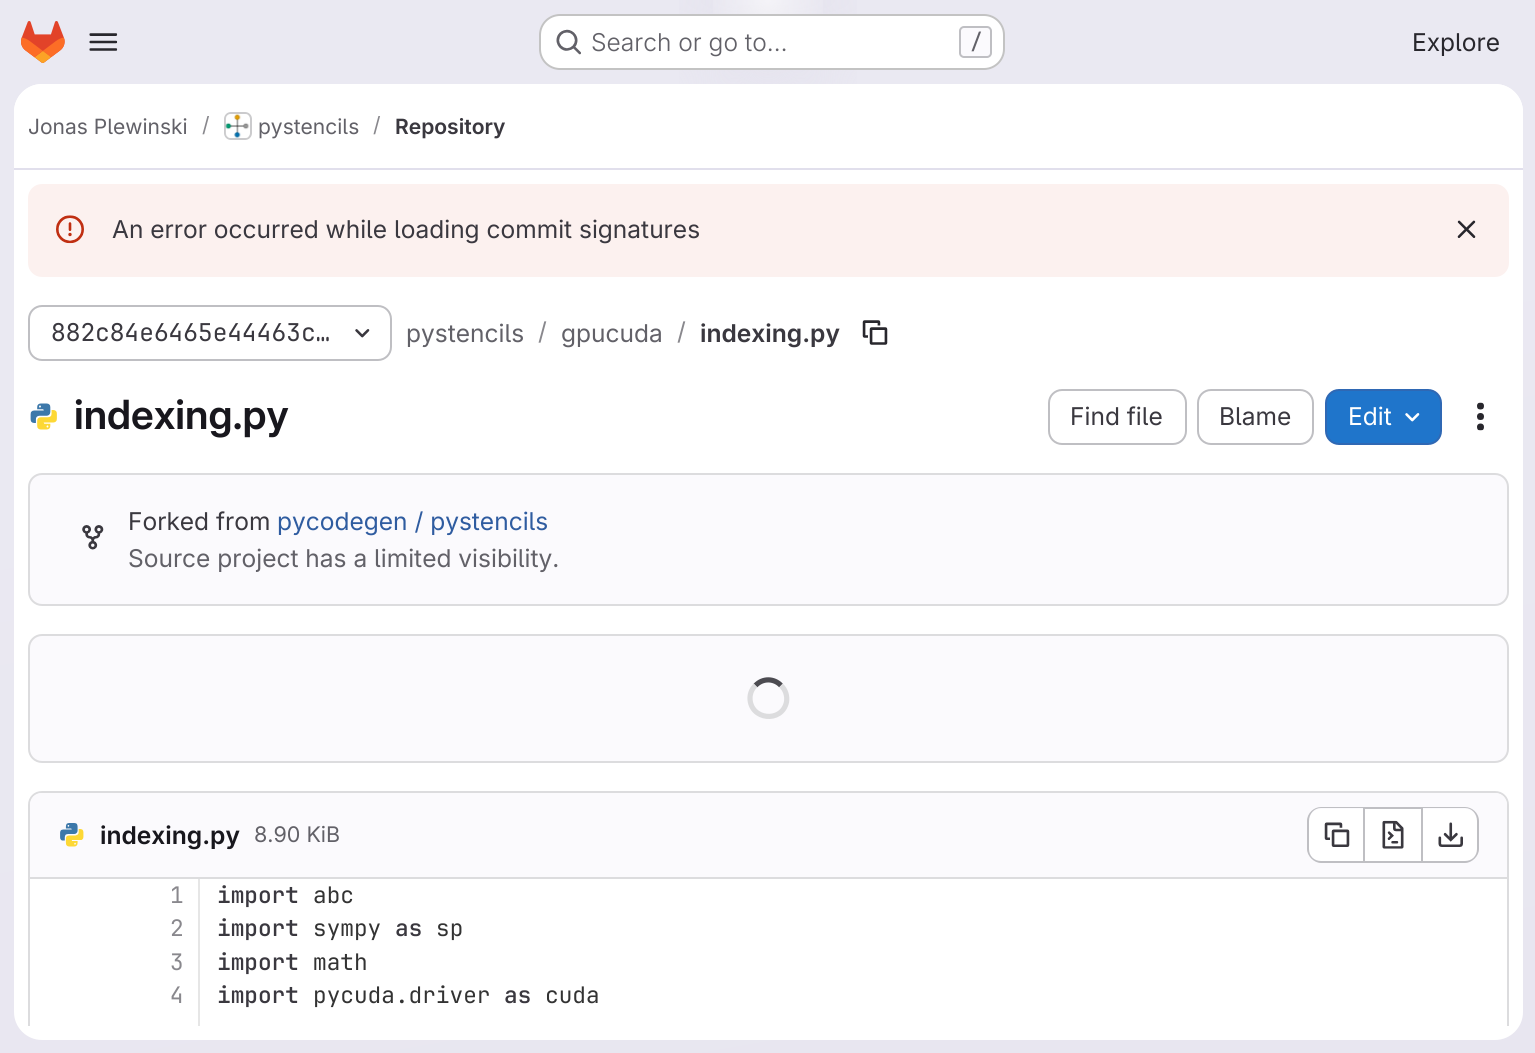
import math
import cairo

surface = cairo.ImageSurface(cairo.FORMAT_RGB24, 1535, 1053)
c = cairo.Context(surface)
options = cairo.FontOptions()
options.set_hint_metrics(cairo.HINT_METRICS_OFF)
options.set_hint_style(cairo.HINT_STYLE_NONE)
c.set_font_options(options)
c.set_miter_limit(4)
def C(code):
 c.set_source_rgb(*(v / 255 for v in bytes.fromhex(code[-6:])))
def F(family, size, italic, bold):
 c.select_font_face(family, cairo.FONT_SLANT_ITALIC if italic else cairo.FONT_SLANT_NORMAL, cairo.FONT_WEIGHT_BOLD if bold else cairo.FONT_WEIGHT_NORMAL)
 c.set_font_size(size)
def T(x, y, s):
 c.move_to(x, y)
 c.show_text(s)
def R(x, y, w, h):
 c.rectangle(x, y, w, h)
 c.fill()
def Q(x, y, w, h, r):
 c.new_sub_path()
 for i, (u, v) in enumerate([(x + w - r, y + h - r), (x + r, y + h - r), (x + r, y + r), (x + w - r, y + r)]):
  c.arc(u, v, r, i * math.pi / 2, (i + 1) * math.pi / 2)
 c.close_path()
def I(path, x, y, w, h):
 c.save()
 c.set_source_surface(cairo.ImageSurface.create_from_png(path), x, y)
 c.rectangle(x, y, w, h)
 c.fill()
 c.restore()
C('ffffff')
c.paint()
gradient = cairo.LinearGradient(881,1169,655,-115)
gradient.add_color_stop_rgba(0,0.91,0.902,0.941,1)
gradient.add_color_stop_rgba(.7,0.918,0.914,0.949,1)
c.set_source(gradient)
R(0,0,1535,1053)
gradient = cairo.RadialGradient(0,0,0,0,0,1)
gradient.set_matrix(cairo.Matrix(1 / 768, 0, 0, 1 / 1054, -1 * 768 / 768, -1 * 0 / 1054))
gradient.add_color_stop_rgba(0,0.894,0.886,0.929,1)
gradient.add_color_stop_rgba(.16,0.894,0.886,0.929,0)
c.set_source(gradient)
R(679,0,178,84)
gradient = cairo.RadialGradient(0,0,0,0,0,1)
gradient.set_matrix(cairo.Matrix(1 / 768, 0, 0, 1 / 1054, -1 * 768 / 768, -1 * 0 / 1054))
gradient.add_color_stop_rgba(0,0.894,0.886,0.925,1)
gradient.add_color_stop_rgba(.11,0.894,0.886,0.925,0)
c.set_source(gradient)
R(737,5,52,35)
gradient = cairo.RadialGradient(768,0,0,768,0,1304)
gradient.add_color_stop_rgba(0,1,1,1,.6)
gradient.add_color_stop_rgba(.05,1,1,1,0)
c.set_source(gradient)
R(713,0,110,14)
I('1.png',21,21,44,42)
I('2.png',89,33,29,18)
C('ffffff')
Q(539,14,466,56,21)
c.fill()
Q(540,15,464,54,20)
c.set_source_rgba(0.02,0.02,0.024,0.24)
c.stroke()
I('3.png',556,29,25,26)
F('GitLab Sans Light',24.5,0,0)
C('626168')
T(591,51,'Search or go to…')
C('fbfafd')
Q(960,27,31,30,4)
c.fill_preserve()
C('bfbfc3')
c.stroke()
F('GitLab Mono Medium',21,0,0)
C('626168')
T(970,49,'/')
F('GitLab Sans',24.5,0,0)
C('28272d')
T(1412,51,'Explore')
C('ffffff')
Q(14,84,1509,956,28)
c.fill()
c.new_path()
c.move_to(42,84)
c.line_to(1495,84)
c.curve_to(1510.5,84,1523,96.5,1523,112)
c.line_to(1523,170)
c.line_to(14,170)
c.line_to(14,112)
c.curve_to(14,96.5,26.5,84,42,84)
c.close_path()
c.fill()
C('e1dfec')
R(14,168,1509,2)
F('GitLab Sans',21,0,0)
C('626168')
T(28,134,'Jonas Plewinski')
C('89888d')
T(202,132,'/')
Q(225,113,26,26,6)
C('dcdcde')
c.stroke()
I('4.png',225,114,25,24)
Q(225,113,26,26,6)
c.set_source_rgba(0.02,0.02,0.024,0.08)
c.stroke()
C('626168')
T(258,134,'pystencils')
C('89888d')
T(373,132,'/')
F('GitLab Sans SemiBold',21,0,0)
C('3a383f')
T(395,134,'Repository')
C('fcf1ef')
Q(28,184,1481,93,14)
c.fill()
I('5.png',56,215,28,29)
F('GitLab Sans',24.5,0,0)
C('3a383f')
T(112,238,'An error occurred while loading commit signatures')
I('6.png',1457,220,19,18)
Q(29,306,362,54,13)
C('bfbfc3')
c.stroke()
F('GitLab Mono',24.5,0,0)
C('3a383f')
T(51,341,'882c84e6465e44463c…')
I('7.png',355,329,15,9)
F('GitLab Sans',24.5,0,0)
C('626168')
T(406,342,'pystencils')
C('89888d')
T(538,340,'/')
C('626168')
T(561,342,'gpucuda')
C('89888d')
T(677,340,'/')
F('GitLab Sans SemiBold',24.5,0,0)
C('3a383f')
T(700,342,'indexing.py')
I('8.png',862,320,26,25)
I('9.png',30,403,27,27)
F('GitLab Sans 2 SemiBold',40.25,0,0)
C('18171d')
T(74,429,'indexing.py')
Q(1049,390,137,54,13)
C('bfbfc3')
c.stroke()
F('GitLab Sans',24.5,0,0)
C('3a383f')
T(1070,425,'Find file')
Q(1198,390,115,54,13)
C('bfbfc3')
c.stroke()
C('3a383f')
T(1219,425,'Blame')
C('1f75cb')
Q(1326,390,115,54,13)
c.fill_preserve()
C('2f68b4')
c.stroke()
C('ffffff')
T(1348,425,'Edit')
I('10.png',1405,413,15,9)
I('11.png',1477,402,7,29)
C('fbfafd')
Q(29,474,1479,131,13)
c.fill_preserve()
C('dcdcde')
c.stroke()
I('12.png',82,525,22,25)
C('3a383f')
T(128,530,'Forked from')
C('2f5ca0')
T(277,530,'pycodegen / pystencils')
C('626168')
T(128,567,'Source project has a limited visibility.')
C('fbfafd')
Q(29,635,1479,127,13)
c.fill_preserve()
C('dcdcde')
c.stroke()
c.new_path()
c.move_to(755.5,685.5)
c.curve_to(762.5,678,774,678,781,685.5)
C('4c4b51')
c.set_line_width(5.2)
c.stroke()
c.new_path()
c.move_to(781,685.5)
c.curve_to(785.5,689.5,787.5,696,786.5,702)
c.curve_to(782,723.5,750,720,750,698)
c.curve_to(750,693.5,752,688.5,755.5,685.5)
C('dcdcde')
c.stroke()
c.save()
c.rectangle(14,170,1509,856)
c.clip()
c.new_path()
c.move_to(42,791)
c.curve_to(34,791,28,797,28,805)
c.line_to(28,1036)
c.line_to(30,1037)
c.line_to(30,805)
c.curve_to(30,798,35,793,42,793)
c.line_to(1495,793)
c.curve_to(1502,793,1507,798,1507,805)
c.line_to(1507,1037)
c.line_to(1509,1036)
c.line_to(1509,805)
c.curve_to(1509,797,1503,791,1495,791)
c.close_path()
c.fill()
c.restore()
C('fbfafd')
c.new_path()
c.move_to(42,793)
c.line_to(1495,793)
c.curve_to(1501.5,793,1507,798.5,1507,805)
c.line_to(1507,879)
c.line_to(30,879)
c.line_to(30,805)
c.curve_to(30,798.5,35.5,793,42,793)
c.close_path()
c.fill()
C('dcdcde')
R(30,877,1477,2)
I('13.png',60,823,24,24)
F('GitLab Sans SemiBold',24.5,0,0)
C('18171d')
T(100,844,'indexing.py')
F('GitLab Sans',21.5,0,0)
C('626168')
T(254,842,'8.90 KiB')
C('ffffff')
c.new_path()
c.move_to(1321,809)
c.line_to(1363,809)
c.line_to(1363,861)
c.line_to(1321,861)
c.curve_to(1314.5,861,1309,855.5,1309,849)
c.line_to(1309,821)
c.curve_to(1309,814.5,1314.5,809,1321,809)
c.close_path()
c.fill()
C('bfbfc3')
c.set_fill_rule(cairo.FILL_RULE_EVEN_ODD)
c.new_path()
c.move_to(1321,807)
c.line_to(1363,807)
c.line_to(1363,863)
c.line_to(1321,863)
c.curve_to(1314,863,1307,856,1307,849)
c.line_to(1307,821)
c.curve_to(1307,813,1314,807,1321,807)
c.close_path()
c.move_to(1321,808)
c.line_to(1363,808)
c.line_to(1363,861)
c.line_to(1321,861)
c.curve_to(1314,861,1309,856,1309,849)
c.line_to(1309,821)
c.curve_to(1309,814,1314,808,1321,808)
c.close_path()
c.fill()
I('14.png',1324,822,26,25)
C('ffffff')
R(1365,809,56,52)
C('bfbfc3')
R(1365,807,56,2)
R(1365,861,56,2)
R(1363,807,2,56)
I('15.png',1382,820,22,29)
C('ffffff')
c.new_path()
c.move_to(1423,809)
c.line_to(1465,809)
c.curve_to(1471.5,809,1477,814.5,1477,821)
c.line_to(1477,849)
c.curve_to(1477,855.5,1471.5,861,1465,861)
c.line_to(1423,861)
c.close_path()
c.fill()
C('bfbfc3')
c.new_path()
c.move_to(1423,807)
c.line_to(1465,807)
c.curve_to(1472,807,1479,813,1479,821)
c.line_to(1479,849)
c.curve_to(1479,856,1472,863,1465,863)
c.line_to(1423,863)
c.close_path()
c.move_to(1423,808)
c.line_to(1465,808)
c.curve_to(1472,808,1477,814,1477,821)
c.line_to(1477,849)
c.curve_to(1477,856,1472,861,1465,861)
c.line_to(1423,861)
c.close_path()
c.fill()
R(1421,807,2,56)
I('16.png',1438,822,25,25)
F('GitLab Mono',22.75,0,0)
C('89888d')
T(170,903,'1')
T(170,936,'2')
T(170,970,'3')
T(170,1003,'4')
C('e6e6e6')
R(198,879,2,147)
F('GitLab Mono SemiBold',22.75,0,0)
C('3a383f')
T(217,903,'import')
F('GitLab Mono',22.75,0,0)
C('333333')
T(313,903,'abc')
F('GitLab Mono SemiBold',22.75,0,0)
C('3a383f')
T(217,936,'import')
F('GitLab Mono',22.75,0,0)
C('333333')
T(313,936,'sympy')
F('GitLab Mono SemiBold',22.75,0,0)
C('3a383f')
T(395,936,'as')
F('GitLab Mono',22.75,0,0)
C('333333')
T(436,936,'sp')
F('GitLab Mono SemiBold',22.75,0,0)
C('3a383f')
T(217,970,'import')
F('GitLab Mono',22.75,0,0)
C('333333')
T(313,970,'math')
F('GitLab Mono SemiBold',22.75,0,0)
C('3a383f')
T(217,1003,'import')
F('GitLab Mono',22.75,0,0)
C('333333')
T(313,1003,'pycuda.driver')
F('GitLab Mono SemiBold',22.75,0,0)
C('3a383f')
T(504,1003,'as')
F('GitLab Mono',22.75,0,0)
C('333333')
T(545,1003,'cuda')
surface.write_to_png('o.png')
